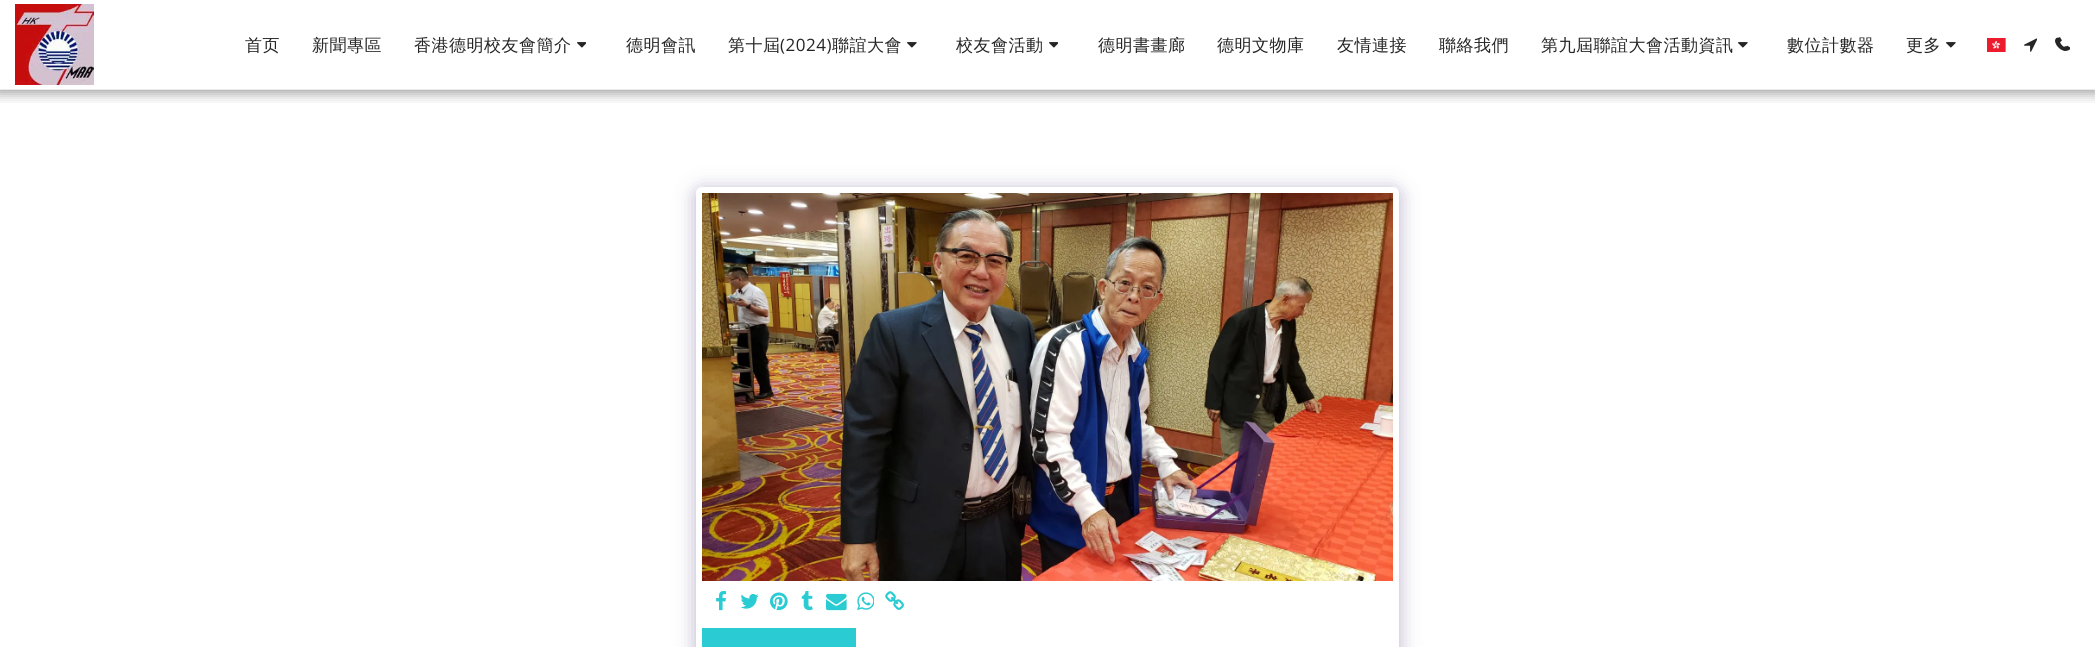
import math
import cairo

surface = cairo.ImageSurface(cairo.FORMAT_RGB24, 2095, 647)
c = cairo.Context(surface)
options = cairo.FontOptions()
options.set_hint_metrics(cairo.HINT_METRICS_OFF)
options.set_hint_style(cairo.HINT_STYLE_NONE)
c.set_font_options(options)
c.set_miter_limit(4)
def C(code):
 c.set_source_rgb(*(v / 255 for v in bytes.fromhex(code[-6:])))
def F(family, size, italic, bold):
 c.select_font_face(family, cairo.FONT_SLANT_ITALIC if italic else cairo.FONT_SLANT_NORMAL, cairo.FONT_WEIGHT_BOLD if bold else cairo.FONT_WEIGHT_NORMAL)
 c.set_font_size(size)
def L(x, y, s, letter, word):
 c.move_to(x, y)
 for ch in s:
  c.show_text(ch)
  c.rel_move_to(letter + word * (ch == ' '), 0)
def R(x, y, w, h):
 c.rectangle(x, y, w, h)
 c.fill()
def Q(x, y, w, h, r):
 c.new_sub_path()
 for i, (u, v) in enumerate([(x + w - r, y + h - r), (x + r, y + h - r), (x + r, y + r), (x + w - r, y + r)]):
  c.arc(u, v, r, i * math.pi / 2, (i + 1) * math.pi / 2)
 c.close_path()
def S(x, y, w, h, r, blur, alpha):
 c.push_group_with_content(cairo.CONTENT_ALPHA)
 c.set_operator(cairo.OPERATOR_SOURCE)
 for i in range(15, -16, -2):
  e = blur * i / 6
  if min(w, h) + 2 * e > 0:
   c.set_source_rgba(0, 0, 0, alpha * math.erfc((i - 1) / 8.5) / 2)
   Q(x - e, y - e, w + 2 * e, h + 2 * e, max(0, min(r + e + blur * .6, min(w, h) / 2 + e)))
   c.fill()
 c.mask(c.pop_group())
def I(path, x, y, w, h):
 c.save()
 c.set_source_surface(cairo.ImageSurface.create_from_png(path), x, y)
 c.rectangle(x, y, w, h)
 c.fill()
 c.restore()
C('ffffff')
c.paint()
c.save()
c.rectangle(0,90,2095,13)
c.clip()
C('000000')
S(-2,0,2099,94,0,6,.35)
c.restore()
C('ebebeb')
R(0,89,2095,1)
I('1.png',15,4,79,81)
F('WenQuanYi Zen Hei Medium',17,0,0)
C('252525')
L(245,51,'首页',.5,0)
L(312,51,'新聞專區',.5,0)
L(414,51,'香港德明校友會簡介',.5,0)
I('2.png',577,42,9,6)
L(626,51,'德明會訊',.5,0)
L(728,51,'第十屆',.5,0)
F('Open Sans',17,0,0)
L(780,51,'(2024)',.5,0)
F('WenQuanYi Zen Hei Medium',17,0,0)
L(832,51,'聯誼大會',.5,0)
I('3.png',907,42,10,6)
L(956,51,'校友會活動',.5,0)
I('2.png',1049,42,9,6)
L(1098,51,'德明書畫廊',.5,0)
L(1217,51,'德明文物庫',.5,0)
L(1337,51,'友情連接',.5,0)
L(1439,51,'聯絡我們',.5,0)
L(1541,51,'第九屆聯誼大會活動資訊',.5,0)
I('3.png',1738,42,10,6)
L(1787,51,'數位計數器',.5,0)
L(1906,51,'更多',.5,0)
I('3.png',1946,42,10,6)
I('4.png',1987,38,19,14)
I('5.png',2024,38,13,14)
I('6.png',2058,37,12,14)
I('7.png',2055,37,13,14)
C('4d3f7a')
S(696,190,703,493,6,10,.4)
C('ffffff')
Q(696,187,703,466,6)
c.fill()
I('8.png',702,193,691,388)
I('9.png',716,591,11,20)
I('10.png',740,594,19,15)
I('11.png',770,592,18,19)
I('12.png',801,591,12,20)
I('13.png',826,593,21,18)
I('14.png',857,592,17,19)
I('15.png',885,591,19,19)
C('2acbd2')
R(702,628,154,19)
surface.write_to_png('o.png')
